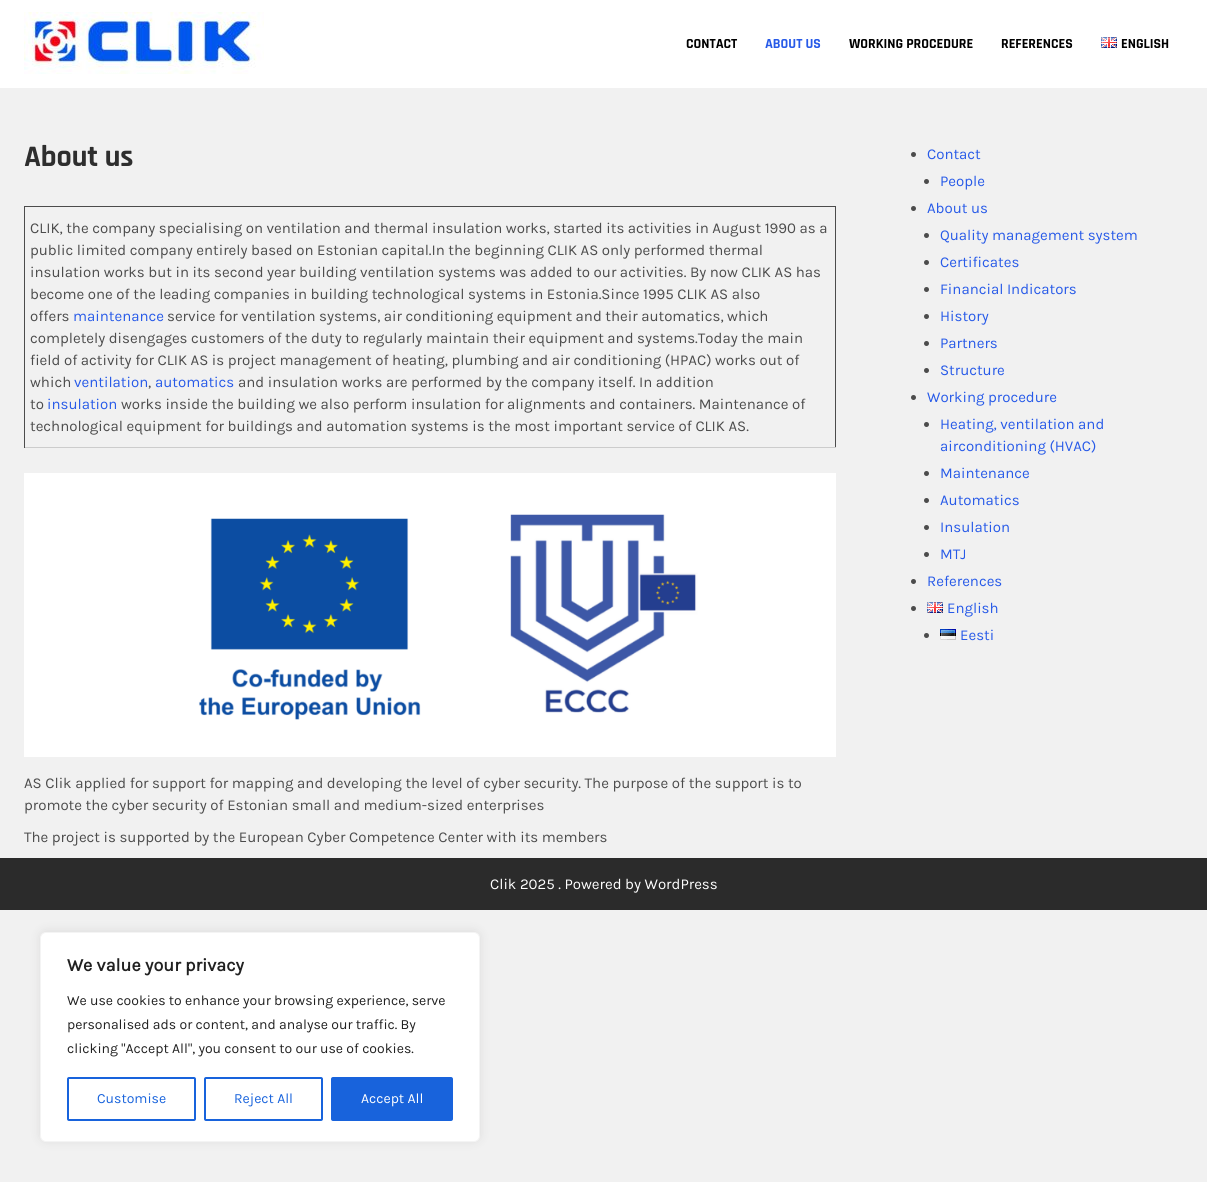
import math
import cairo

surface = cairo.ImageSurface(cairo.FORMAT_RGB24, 1207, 1182)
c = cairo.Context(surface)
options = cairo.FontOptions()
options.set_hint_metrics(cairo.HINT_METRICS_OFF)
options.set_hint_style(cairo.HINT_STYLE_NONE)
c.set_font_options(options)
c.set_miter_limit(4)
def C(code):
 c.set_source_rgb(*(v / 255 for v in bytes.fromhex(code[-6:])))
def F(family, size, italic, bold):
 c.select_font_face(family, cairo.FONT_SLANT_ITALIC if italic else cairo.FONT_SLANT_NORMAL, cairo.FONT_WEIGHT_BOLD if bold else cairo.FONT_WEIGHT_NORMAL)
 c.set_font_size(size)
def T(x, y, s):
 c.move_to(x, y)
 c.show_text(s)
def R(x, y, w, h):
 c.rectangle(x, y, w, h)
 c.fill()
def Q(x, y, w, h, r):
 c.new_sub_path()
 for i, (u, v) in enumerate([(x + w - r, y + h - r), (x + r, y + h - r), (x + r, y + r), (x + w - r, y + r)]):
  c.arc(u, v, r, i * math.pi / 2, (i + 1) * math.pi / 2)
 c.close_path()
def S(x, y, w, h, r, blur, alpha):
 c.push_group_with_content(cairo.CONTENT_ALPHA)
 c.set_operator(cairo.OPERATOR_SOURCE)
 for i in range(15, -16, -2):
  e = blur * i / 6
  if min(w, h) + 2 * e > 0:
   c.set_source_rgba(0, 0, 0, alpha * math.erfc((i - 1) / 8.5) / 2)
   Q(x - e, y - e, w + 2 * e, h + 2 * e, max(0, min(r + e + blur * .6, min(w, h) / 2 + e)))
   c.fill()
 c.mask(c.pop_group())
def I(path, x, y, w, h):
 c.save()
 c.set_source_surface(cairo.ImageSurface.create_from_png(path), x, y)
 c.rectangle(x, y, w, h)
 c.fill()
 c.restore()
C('f1f1f1')
c.paint()
C('ffffff')
R(0,0,1207,88)
I('1.png',24,12,240,62)
F('Rajdhani',14,0,1)
C('000000')
T(686,48,'CONTACT')
C('275ae8')
T(765,48,'ABOUT US')
C('000000')
T(849,48,'WORKING PROCEDURE')
T(1001,48,'REFERENCES')
I('2.png',1101,37,16,11)
T(1121,48,'ENGLISH')
F('Rajdhani',30,0,1)
C('2e2e2e')
T(24,166,'About us')
C('4c4c4c')
R(24,206,812,1)
R(835,206,1,242)
C('cccccc')
R(24,447,812,1)
C('4c4c4c')
R(24,206,1,242)
F('Karla',15,0,0)
T(30,233,'CLIK, the company specialising on ventilation and thermal insulation works, started its activities in August 1990 as a')
T(30,255,'public limited company entirely based on Estonian capital.In the beginning CLIK AS only performed thermal')
T(30,277,'insulation works but in its second year building ventilation systems was added to our activities. By now CLIK AS has')
T(30,299,'become one of the leading companies in building technological systems in Estonia.Since 1995 CLIK AS also')
T(30,321,'offers')
C('275ae8')
T(73,321,'maintenance')
C('4c4c4c')
T(167,321,'service for ventilation systems, air conditioning equipment and their automatics, which')
T(30,343,'completely disengages customers of the duty to regularly maintain their equipment and systems.Today the main')
T(30,365,'field of activity for CLIK AS is project management of heating, plumbing and air conditioning (HPAC) works out of')
T(30,387,'which')
C('275ae8')
T(74,387,'ventilation')
C('4c4c4c')
T(148,387,',')
C('275ae8')
T(155,387,'automatics')
C('4c4c4c')
T(238,387,'and insulation works are performed by the company itself. In addition')
T(30,409,'to')
C('275ae8')
T(47,409,'insulation')
C('4c4c4c')
T(121,409,'works inside the building we also perform insulation for alignments and containers. Maintenance of')
T(30,431,'technological equipment for buildings and automation systems is the most important service of CLIK AS.')
I('3.png',24,473,812,284)
T(24,788,'AS Clik applied for support for mapping and developing the level of cyber security. The purpose of the support is to')
T(24,810,'promote the cyber security of Estonian small and medium-sized enterprises')
T(24,842,'The project is supported by the European Cyber Competence Center with its members')
c.new_path()
c.arc(913.5,154.5,2.5,0,2 * math.pi)
c.fill()
C('275ae8')
T(927,159,'Contact')
C('4c4c4c')
c.new_path()
c.arc(926.5,181.5,2.5,0,2 * math.pi)
c.fill()
C('275ae8')
T(940,186,'People')
C('4c4c4c')
c.new_path()
c.arc(913.5,208.5,2.5,0,2 * math.pi)
c.fill()
C('275ae8')
T(927,213,'About us')
C('4c4c4c')
c.new_path()
c.arc(926.5,235.5,2.5,0,2 * math.pi)
c.fill()
C('275ae8')
T(940,240,'Quality management system')
C('4c4c4c')
c.new_path()
c.arc(926.5,262.5,2.5,0,2 * math.pi)
c.fill()
C('275ae8')
T(940,267,'Certificates')
C('4c4c4c')
c.new_path()
c.arc(926.5,289.5,2.5,0,2 * math.pi)
c.fill()
C('275ae8')
T(940,294,'Financial Indicators')
C('4c4c4c')
c.new_path()
c.arc(926.5,316.5,2.5,0,2 * math.pi)
c.fill()
C('275ae8')
T(940,321,'History')
C('4c4c4c')
c.new_path()
c.arc(926.5,343.5,2.5,0,2 * math.pi)
c.fill()
C('275ae8')
T(940,348,'Partners')
C('4c4c4c')
c.new_path()
c.arc(926.5,370.5,2.5,0,2 * math.pi)
c.fill()
C('275ae8')
T(940,375,'Structure')
C('4c4c4c')
c.new_path()
c.arc(913.5,397.5,2.5,0,2 * math.pi)
c.fill()
C('275ae8')
T(927,402,'Working procedure')
C('4c4c4c')
c.new_path()
c.arc(926.5,424.5,2.5,0,2 * math.pi)
c.fill()
C('275ae8')
T(940,429,'Heating, ventilation and')
T(940,451,'airconditioning (HVAC)')
C('4c4c4c')
c.new_path()
c.arc(926.5,473.5,2.5,0,2 * math.pi)
c.fill()
C('275ae8')
T(940,478,'Maintenance')
C('4c4c4c')
c.new_path()
c.arc(926.5,500.5,2.5,0,2 * math.pi)
c.fill()
C('275ae8')
T(940,505,'Automatics')
C('4c4c4c')
c.new_path()
c.arc(926.5,527.5,2.5,0,2 * math.pi)
c.fill()
C('275ae8')
T(940,532,'Insulation')
C('4c4c4c')
c.new_path()
c.arc(926.5,554.5,2.5,0,2 * math.pi)
c.fill()
C('275ae8')
T(940,559,'MTJ')
C('4c4c4c')
c.new_path()
c.arc(913.5,581.5,2.5,0,2 * math.pi)
c.fill()
C('275ae8')
T(927,586,'References')
C('4c4c4c')
c.new_path()
c.arc(913.5,608.5,2.5,0,2 * math.pi)
c.fill()
I('2.png',927,602,16,11)
C('275ae8')
T(947,613,'English')
C('4c4c4c')
c.new_path()
c.arc(926.5,635.5,2.5,0,2 * math.pi)
c.fill()
I('4.png',940,629,16,11)
C('275ae8')
T(960,640,'Eesti')
C('2b2b2b')
R(0,858,1207,52)
C('ffffff')
T(490,889,'Clik 2025 . Powered by WordPress')
C('acabab')
S(40,931,440,210,6,5,.3)
C('ffffff')
Q(40.5,932.5,439,209,5.5)
c.fill_preserve()
C('f4f4f4')
c.set_line_width(1)
c.stroke()
F('Karla',18,0,1)
C('212121')
T(67,971,'We value your privacy')
F('Karla',14,0,0)
T(67,1005,'We use cookies to enhance your browsing experience, serve')
T(67,1029,'personalised ads or content, and analyse our traffic. By')
T(67,1053,'clicking "Accept All", you consent to our use of cookies.')
Q(68,1078,127,42,1)
C('1863dc')
c.set_line_width(2)
c.stroke()
T(97,1103,'Customise')
Q(205,1078,117,42,1)
c.stroke()
T(234,1103,'Reject All')
Q(332,1078,120,42,1)
c.fill_preserve()
c.stroke()
C('ffffff')
T(361,1103,'Accept All')
surface.write_to_png('o.png')
